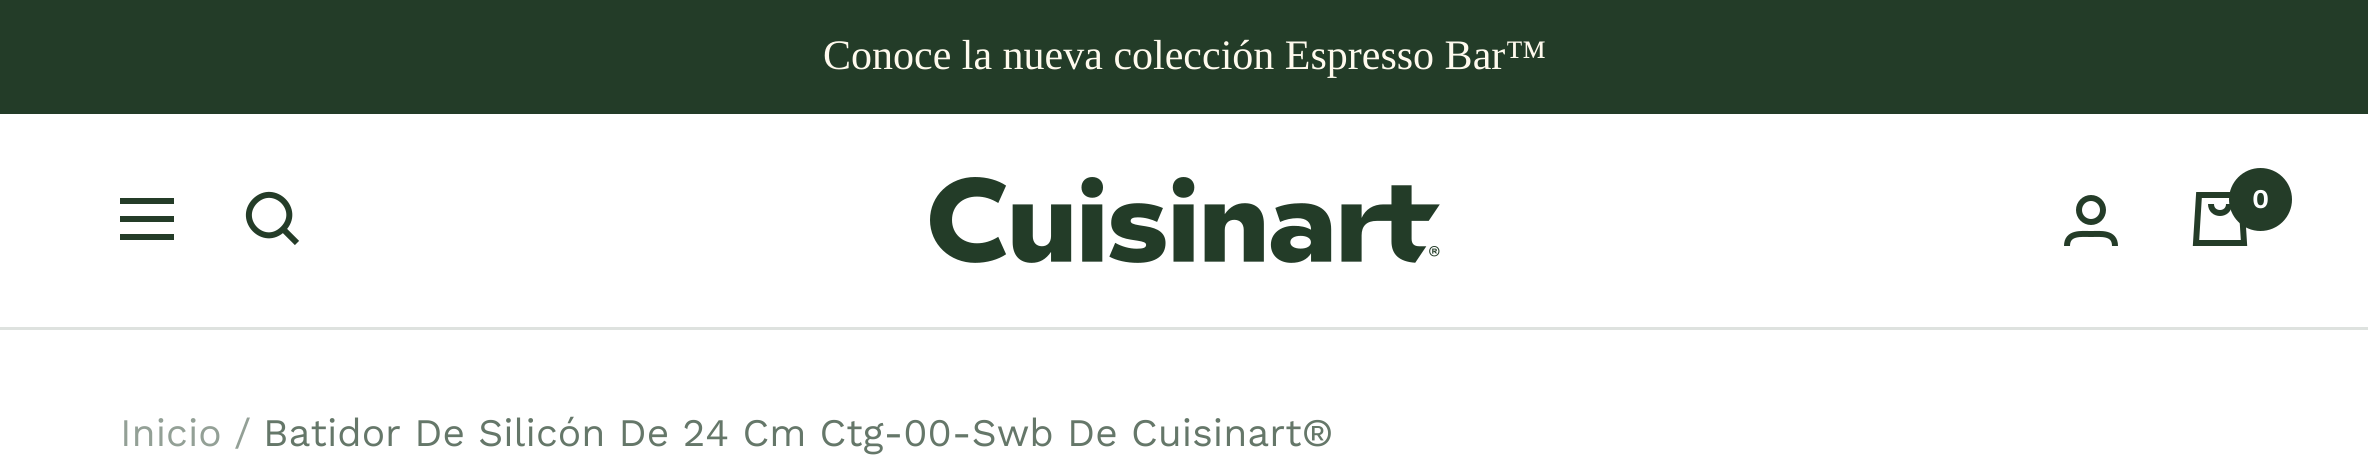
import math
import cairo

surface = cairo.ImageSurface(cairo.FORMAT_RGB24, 2368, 461)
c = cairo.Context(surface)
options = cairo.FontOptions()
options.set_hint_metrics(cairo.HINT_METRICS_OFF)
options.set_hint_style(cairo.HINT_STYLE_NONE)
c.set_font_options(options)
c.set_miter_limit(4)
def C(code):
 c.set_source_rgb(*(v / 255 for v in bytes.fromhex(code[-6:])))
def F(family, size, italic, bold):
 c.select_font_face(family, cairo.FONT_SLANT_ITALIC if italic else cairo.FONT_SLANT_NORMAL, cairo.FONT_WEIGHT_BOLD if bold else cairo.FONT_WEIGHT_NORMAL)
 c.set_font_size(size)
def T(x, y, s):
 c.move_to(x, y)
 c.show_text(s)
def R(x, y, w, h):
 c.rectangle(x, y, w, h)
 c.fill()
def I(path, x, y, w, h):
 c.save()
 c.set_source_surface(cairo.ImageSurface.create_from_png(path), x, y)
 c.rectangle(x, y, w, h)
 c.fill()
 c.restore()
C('ffffff')
c.paint()
C('233c28')
R(0,0,2368,114)
F('Liberation Serif',42,0,0)
C('fffaee')
T(823,69,'Conoce la nueva colección Espresso Bar™')
C('dee2df')
R(0,327,2368,3)
c.new_path()
c.move_to(120,201)
c.line_to(174,201)
c.move_to(120,237)
c.line_to(174,237)
c.close_path()
c.move_to(120,219)
c.line_to(174,219)
c.close_path()
C('243c28')
c.set_line_width(6)
c.stroke()
c.new_path()
c.move_to(283,229)
c.curve_to(302,210,274,182.5,255,201)
c.curve_to(236.5,220,264,248,283,229)
c.close_path()
c.move_to(283,229)
c.line_to(297,243)
c.stroke()
I('1.png',930,177,510,86)
c.arc(2091,210,12,0,2 * math.pi)
c.stroke()
c.new_path()
c.move_to(2067,246)
c.curve_to(2067,232,2081.5,234,2091,234)
c.curve_to(2100.5,234,2115,232,2115,246)
c.stroke()
c.new_path()
c.move_to(2199,195)
c.line_to(2241,195)
c.line_to(2244,243)
c.line_to(2196,243)
c.close_path()
c.move_to(2211,204)
c.curve_to(2211,216,2229,216,2229,204)
c.stroke()
c.arc(2260.5,199.5,31.5,0,2 * math.pi)
c.fill()
F('Work Sans SemiBold',27,0,0)
C('ffffff')
T(2252,208,'0')
F('Work Sans',39,0,0)
C('93a096')
T(120,446,'Inicio')
T(234,446,'/')
C('657769')
T(263,446,'Batidor De Silicón De 24 Cm Ctg-00-Swb De Cuisinart®')
surface.write_to_png('o.png')
